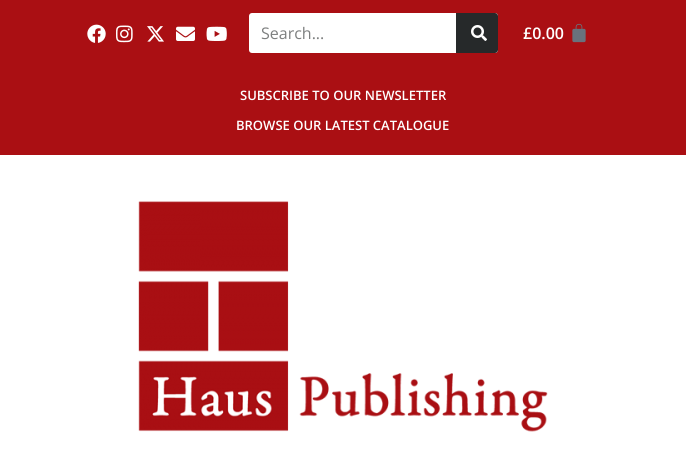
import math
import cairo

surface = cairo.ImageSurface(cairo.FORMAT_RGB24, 686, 469)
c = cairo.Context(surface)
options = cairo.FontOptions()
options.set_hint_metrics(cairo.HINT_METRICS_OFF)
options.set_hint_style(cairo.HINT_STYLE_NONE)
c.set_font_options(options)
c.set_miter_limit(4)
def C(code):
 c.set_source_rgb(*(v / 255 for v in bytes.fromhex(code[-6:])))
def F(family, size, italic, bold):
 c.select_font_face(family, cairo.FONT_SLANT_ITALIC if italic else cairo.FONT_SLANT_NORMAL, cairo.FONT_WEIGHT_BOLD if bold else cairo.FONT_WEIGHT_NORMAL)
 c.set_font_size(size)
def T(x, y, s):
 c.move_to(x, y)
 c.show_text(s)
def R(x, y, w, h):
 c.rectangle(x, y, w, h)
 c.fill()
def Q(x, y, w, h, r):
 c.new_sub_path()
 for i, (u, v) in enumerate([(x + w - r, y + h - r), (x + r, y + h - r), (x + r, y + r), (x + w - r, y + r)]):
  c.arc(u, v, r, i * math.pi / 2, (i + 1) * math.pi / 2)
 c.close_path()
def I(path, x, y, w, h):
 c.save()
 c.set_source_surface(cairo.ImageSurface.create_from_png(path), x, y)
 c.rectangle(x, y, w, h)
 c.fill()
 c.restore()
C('ffffff')
c.paint()
C('aa0f13')
R(0,0,686,155)
I('1.png',87,24,19,19)
I('2.png',116,25,17,18)
I('3.png',147,26,17,16)
I('4.png',176,26,19,15)
I('5.png',206,26,21,15)
C('ffffff')
Q(249,13,249,40,3)
c.fill()
F('Open Sans',16,0,0)
C('7d7f7f')
T(261,39,'Search...')
C('26292a')
c.new_path()
c.move_to(456,13)
c.line_to(495,13)
c.curve_to(496.5,13,498,14.5,498,16)
c.line_to(498,50)
c.curve_to(498,51.5,496.5,53,495,53)
c.line_to(456,53)
c.close_path()
c.fill()
I('6.png',471,25,16,16)
F('Open Sans SemiBold',16,0,0)
C('ffffff')
T(523,39,'£0.00')
I('7.png',572,23,14,20)
F('Open Sans SemiBold',13,0,0)
T(240,100,'SUBSCRIBE TO OUR NEWSLETTER')
T(236,130,'BROWSE OUR LATEST CATALOGUE')
I('8.png',138,201,410,231)
surface.write_to_png('o.png')
